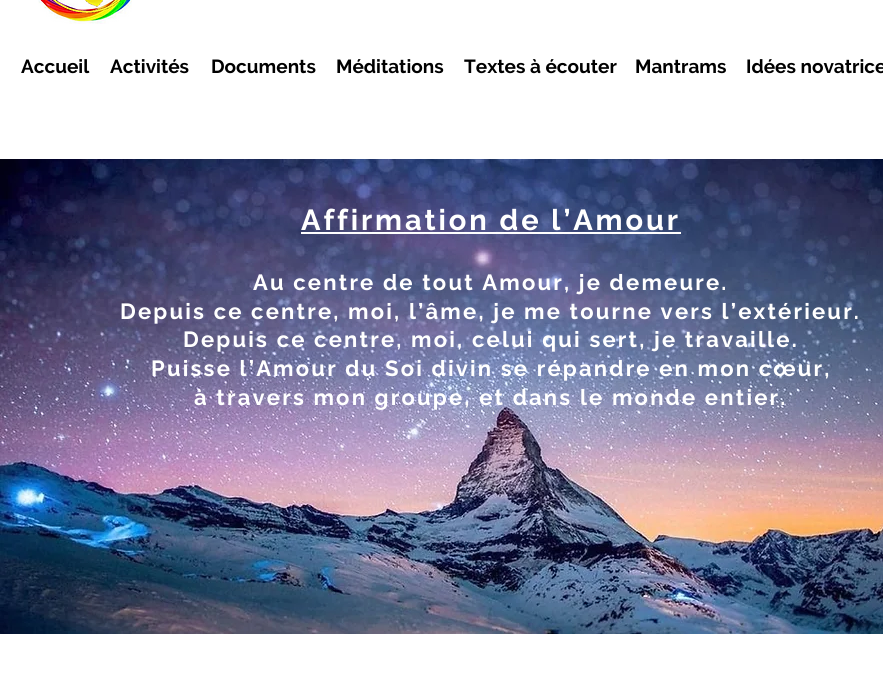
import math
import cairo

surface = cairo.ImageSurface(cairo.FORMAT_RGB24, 883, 673)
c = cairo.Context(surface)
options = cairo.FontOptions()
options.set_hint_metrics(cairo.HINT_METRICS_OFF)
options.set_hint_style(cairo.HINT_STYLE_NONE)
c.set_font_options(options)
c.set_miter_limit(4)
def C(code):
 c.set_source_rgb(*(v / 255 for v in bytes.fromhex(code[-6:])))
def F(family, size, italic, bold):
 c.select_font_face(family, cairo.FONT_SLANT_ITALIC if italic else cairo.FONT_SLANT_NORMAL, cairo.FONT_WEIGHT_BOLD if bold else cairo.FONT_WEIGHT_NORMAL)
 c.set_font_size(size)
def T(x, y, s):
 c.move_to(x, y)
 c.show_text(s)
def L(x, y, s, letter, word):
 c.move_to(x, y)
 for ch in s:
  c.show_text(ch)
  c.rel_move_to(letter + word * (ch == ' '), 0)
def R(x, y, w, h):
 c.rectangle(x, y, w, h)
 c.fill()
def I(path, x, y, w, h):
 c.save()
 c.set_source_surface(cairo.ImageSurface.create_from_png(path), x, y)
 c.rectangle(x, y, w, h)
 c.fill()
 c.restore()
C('ffffff')
c.paint()
I('1.png',38,0,94,24)
F('Raleway',19,0,1)
C('000000')
T(21,73,'Accueil')
T(110,73,'Activités')
T(211,73,'Documents')
T(336,73,'Méditations')
T(464,73,'Textes à écouter')
T(635,73,'Mantrams')
T(746,73,'Idées novatrice')
I('2.png',0,159,883,475)
F('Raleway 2',29,0,1)
C('ffffff')
L(301,230,'Affirmation de l’Amour',2.9,0)
R(301,232,380,2)
F('Raleway 2',22,0,1)
L(253,290,'Au centre de tout Amour, je demeure.',2.2,0)
L(120,319,'Depuis ce centre, moi, l’âme, je me tourne vers l’extérieur.',2.2,0)
L(183,347,'Depuis ce centre, moi, celui qui sert, je travaille.',2.2,0)
L(151,376,'Puisse l’Amour du Soi divin se répandre en mon cœur,',2.2,0)
L(194,405,'à travers mon groupe, et dans le monde entier.',2.2,0)
surface.write_to_png('o.png')
